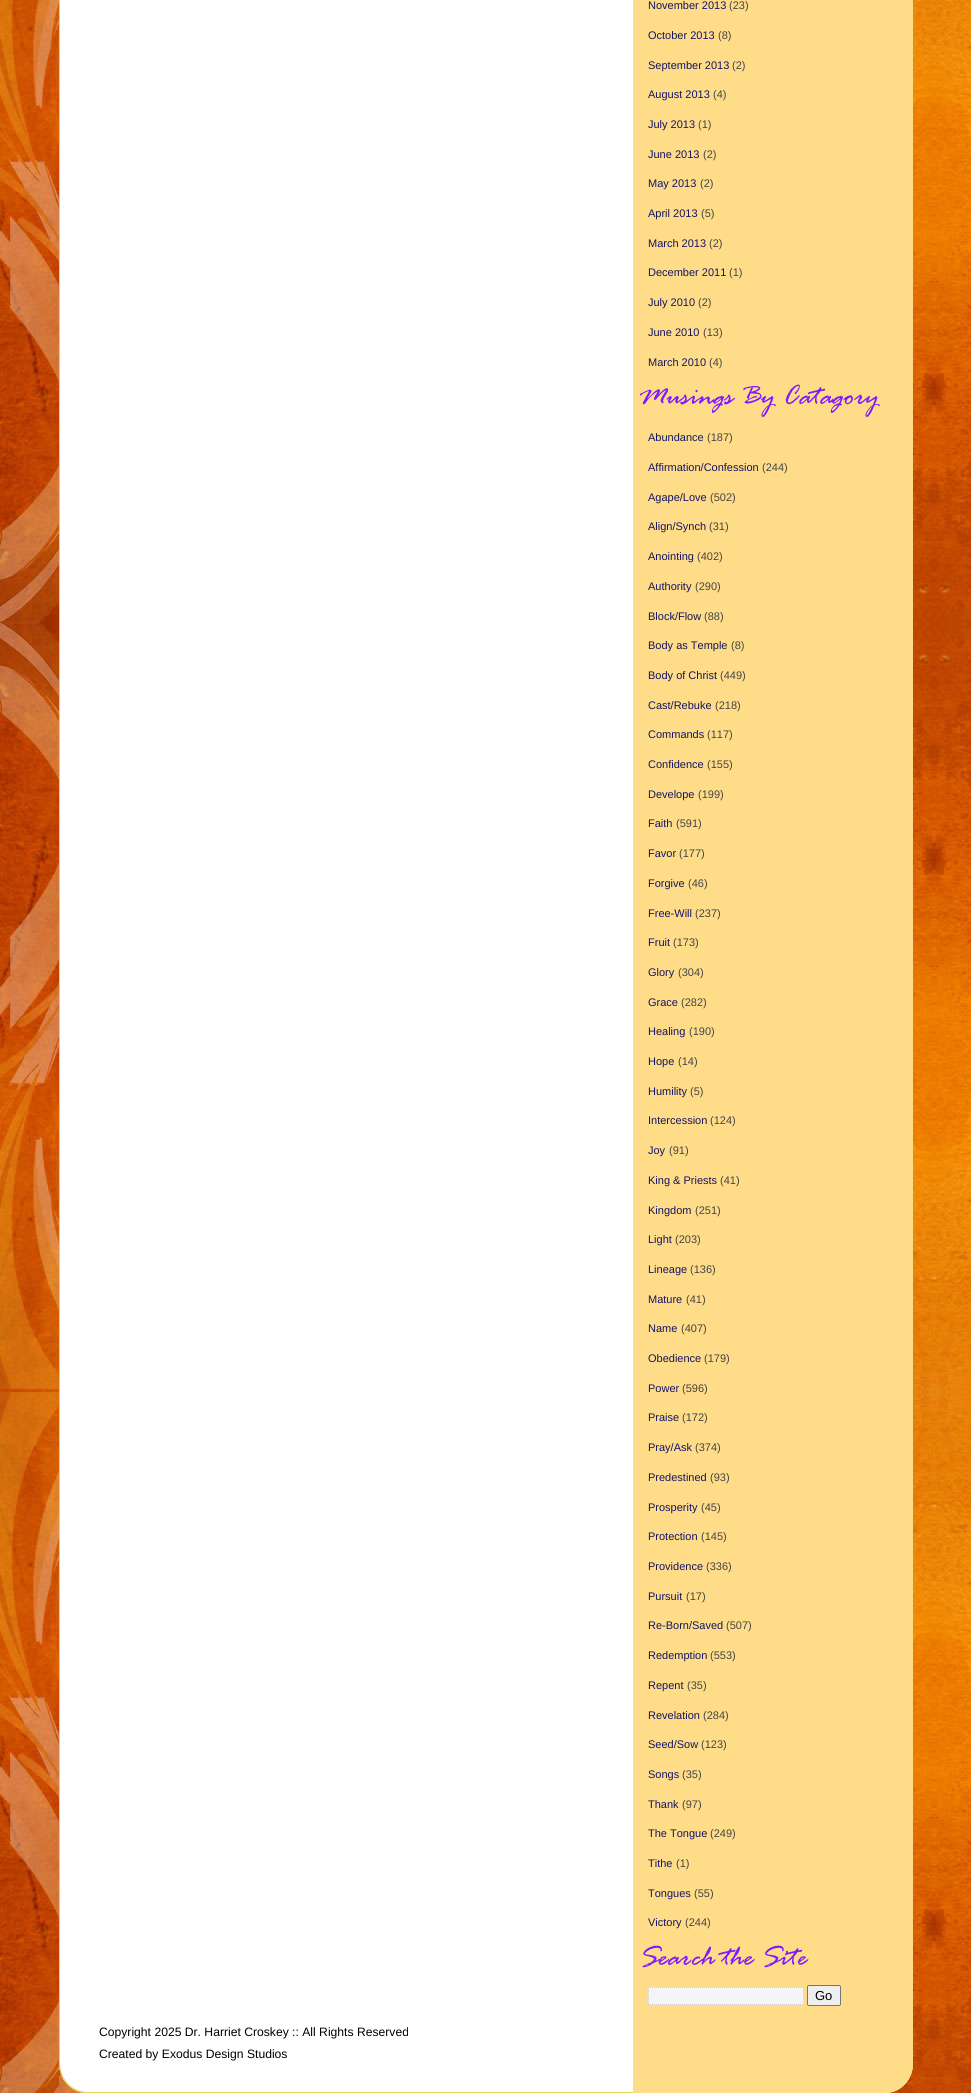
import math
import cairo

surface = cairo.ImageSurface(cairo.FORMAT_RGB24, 971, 2093)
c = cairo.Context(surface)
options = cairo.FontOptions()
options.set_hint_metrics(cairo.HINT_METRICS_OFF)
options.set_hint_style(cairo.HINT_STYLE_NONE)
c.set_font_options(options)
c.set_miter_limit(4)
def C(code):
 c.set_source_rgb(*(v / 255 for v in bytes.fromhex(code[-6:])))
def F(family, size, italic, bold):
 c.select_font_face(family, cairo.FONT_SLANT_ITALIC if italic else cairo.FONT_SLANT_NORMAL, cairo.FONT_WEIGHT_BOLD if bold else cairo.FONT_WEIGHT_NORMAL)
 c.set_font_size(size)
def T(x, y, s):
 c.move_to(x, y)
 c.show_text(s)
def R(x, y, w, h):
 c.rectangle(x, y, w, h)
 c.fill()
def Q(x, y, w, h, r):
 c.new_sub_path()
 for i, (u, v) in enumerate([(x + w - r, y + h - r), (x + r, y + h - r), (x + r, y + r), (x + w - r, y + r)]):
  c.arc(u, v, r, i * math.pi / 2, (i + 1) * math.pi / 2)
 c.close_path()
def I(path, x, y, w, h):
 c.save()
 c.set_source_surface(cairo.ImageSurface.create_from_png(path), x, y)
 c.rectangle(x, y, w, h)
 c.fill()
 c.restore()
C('ffffff')
c.paint()
I('1.png',0,0,971,2093)
I('2.png',59,0,854,2066)
F('Liberation Sans',11,0,0)
C('141464')
T(648,9,'November 2013')
C('444444')
T(729,9,'(23)')
C('141464')
T(648,39,'October 2013')
C('444444')
T(718,39,'(8)')
C('141464')
T(648,69,'September 2013')
C('444444')
T(732,69,'(2)')
C('141464')
T(648,98,'August 2013')
C('444444')
T(713,98,'(4)')
C('141464')
T(648,128,'July 2013')
C('444444')
T(698,128,'(1)')
C('141464')
T(648,158,'June 2013')
C('444444')
T(703,158,'(2)')
C('141464')
T(648,187,'May 2013')
C('444444')
T(700,187,'(2)')
C('141464')
T(648,217,'April 2013')
C('444444')
T(701,217,'(5)')
C('141464')
T(648,247,'March 2013')
C('444444')
T(709,247,'(2)')
C('141464')
T(648,276,'December 2011')
C('444444')
T(729,276,'(1)')
C('141464')
T(648,306,'July 2010')
C('444444')
T(698,306,'(2)')
C('141464')
T(648,336,'June 2010')
C('444444')
T(703,336,'(13)')
C('141464')
T(648,366,'March 2010')
C('444444')
T(709,366,'(4)')
I('3.png',640,384,240,33)
C('141464')
T(648,441,'Abundance')
C('444444')
T(707,441,'(187)')
C('141464')
T(648,471,'Affirmation/Confession')
C('444444')
T(762,471,'(244)')
C('141464')
T(648,501,'Agape/Love')
C('444444')
T(710,501,'(502)')
C('141464')
T(648,530,'Align/Synch')
C('444444')
T(709,530,'(31)')
C('141464')
T(648,560,'Anointing')
C('444444')
T(697,560,'(402)')
C('141464')
T(648,590,'Authority')
C('444444')
T(695,590,'(290)')
C('141464')
T(648,620,'Block/Flow')
C('444444')
T(704,620,'(88)')
C('141464')
T(648,649,'Body as Temple')
C('444444')
T(731,649,'(8)')
C('141464')
T(648,679,'Body of Christ')
C('444444')
T(720,679,'(449)')
C('141464')
T(648,709,'Cast/Rebuke')
C('444444')
T(715,709,'(218)')
C('141464')
T(648,738,'Commands')
C('444444')
T(707,738,'(117)')
C('141464')
T(648,768,'Confidence')
C('444444')
T(707,768,'(155)')
C('141464')
T(648,798,'Develope')
C('444444')
T(698,798,'(199)')
C('141464')
T(648,827,'Faith')
C('444444')
T(676,827,'(591)')
C('141464')
T(648,857,'Favor')
C('444444')
T(679,857,'(177)')
C('141464')
T(648,887,'Forgive')
C('444444')
T(688,887,'(46)')
C('141464')
T(648,917,'Free-Will')
C('444444')
T(695,917,'(237)')
C('141464')
T(648,946,'Fruit')
C('444444')
T(673,946,'(173)')
C('141464')
T(648,976,'Glory')
C('444444')
T(678,976,'(304)')
C('141464')
T(648,1006,'Grace')
C('444444')
T(681,1006,'(282)')
C('141464')
T(648,1035,'Healing')
C('444444')
T(689,1035,'(190)')
C('141464')
T(648,1065,'Hope')
C('444444')
T(678,1065,'(14)')
C('141464')
T(648,1095,'Humility')
C('444444')
T(690,1095,'(5)')
C('141464')
T(648,1124,'Intercession')
C('444444')
T(710,1124,'(124)')
C('141464')
T(648,1154,'Joy')
C('444444')
T(669,1154,'(91)')
C('141464')
T(648,1184,'King & Priests')
C('444444')
T(720,1184,'(41)')
C('141464')
T(648,1214,'Kingdom')
C('444444')
T(695,1214,'(251)')
C('141464')
T(648,1243,'Light')
C('444444')
T(675,1243,'(203)')
C('141464')
T(648,1273,'Lineage')
C('444444')
T(690,1273,'(136)')
C('141464')
T(648,1303,'Mature')
C('444444')
T(686,1303,'(41)')
C('141464')
T(648,1332,'Name')
C('444444')
T(681,1332,'(407)')
C('141464')
T(648,1362,'Obedience')
C('444444')
T(704,1362,'(179)')
C('141464')
T(648,1392,'Power')
C('444444')
T(682,1392,'(596)')
C('141464')
T(648,1421,'Praise')
C('444444')
T(682,1421,'(172)')
C('141464')
T(648,1451,'Pray/Ask')
C('444444')
T(695,1451,'(374)')
C('141464')
T(648,1481,'Predestined')
C('444444')
T(710,1481,'(93)')
C('141464')
T(648,1511,'Prosperity')
C('444444')
T(701,1511,'(45)')
C('141464')
T(648,1540,'Protection')
C('444444')
T(701,1540,'(145)')
C('141464')
T(648,1570,'Providence')
C('444444')
T(706,1570,'(336)')
C('141464')
T(648,1600,'Pursuit')
C('444444')
T(686,1600,'(17)')
C('141464')
T(648,1629,'Re-Born/Saved')
C('444444')
T(726,1629,'(507)')
C('141464')
T(648,1659,'Redemption')
C('444444')
T(710,1659,'(553)')
C('141464')
T(648,1689,'Repent')
C('444444')
T(687,1689,'(35)')
C('141464')
T(648,1719,'Revelation')
C('444444')
T(703,1719,'(284)')
C('141464')
T(648,1748,'Seed/Sow')
C('444444')
T(701,1748,'(123)')
C('141464')
T(648,1778,'Songs')
C('444444')
T(682,1778,'(35)')
C('141464')
T(648,1808,'Thank')
C('444444')
T(682,1808,'(97)')
C('141464')
T(648,1837,'The Tongue')
C('444444')
T(710,1837,'(249)')
C('141464')
T(648,1867,'Tithe')
C('444444')
T(676,1867,'(1)')
C('141464')
T(648,1897,'Tongues')
C('444444')
T(694,1897,'(55)')
C('141464')
T(648,1926,'Victory')
C('444444')
T(685,1926,'(244)')
I('4.png',642,1945,167,23)
C('f5f5f8')
R(648,1987,156,18)
c.new_path()
c.move_to(648,1987.5)
c.line_to(804,1987.5)
C('cccccc')
c.set_line_width(1)
c.set_dash([1,1])
c.stroke()
c.new_path()
c.move_to(803.5,1987)
c.line_to(803.5,2005)
c.stroke()
c.new_path()
c.move_to(648,2004.5)
c.line_to(804,2004.5)
c.stroke()
c.new_path()
c.move_to(648.5,1987)
c.line_to(648.5,2005)
c.stroke()
C('efefef')
Q(807.5,1985.5,33,20,1.5)
c.fill_preserve()
C('767676')
c.set_dash([])
c.stroke()
F('Liberation Sans',13,0,0)
C('000000')
T(815,2000,'Go')
F('Liberation Sans',12.15,0,0)
T(99,2036,'Copyright 2025 Dr. Harriet Croskey :: All Rights Reserved')
T(99,2058,'Created by Exodus Design Studios')
I('5.png',59,2066,854,27)
surface.write_to_png('o.png')
